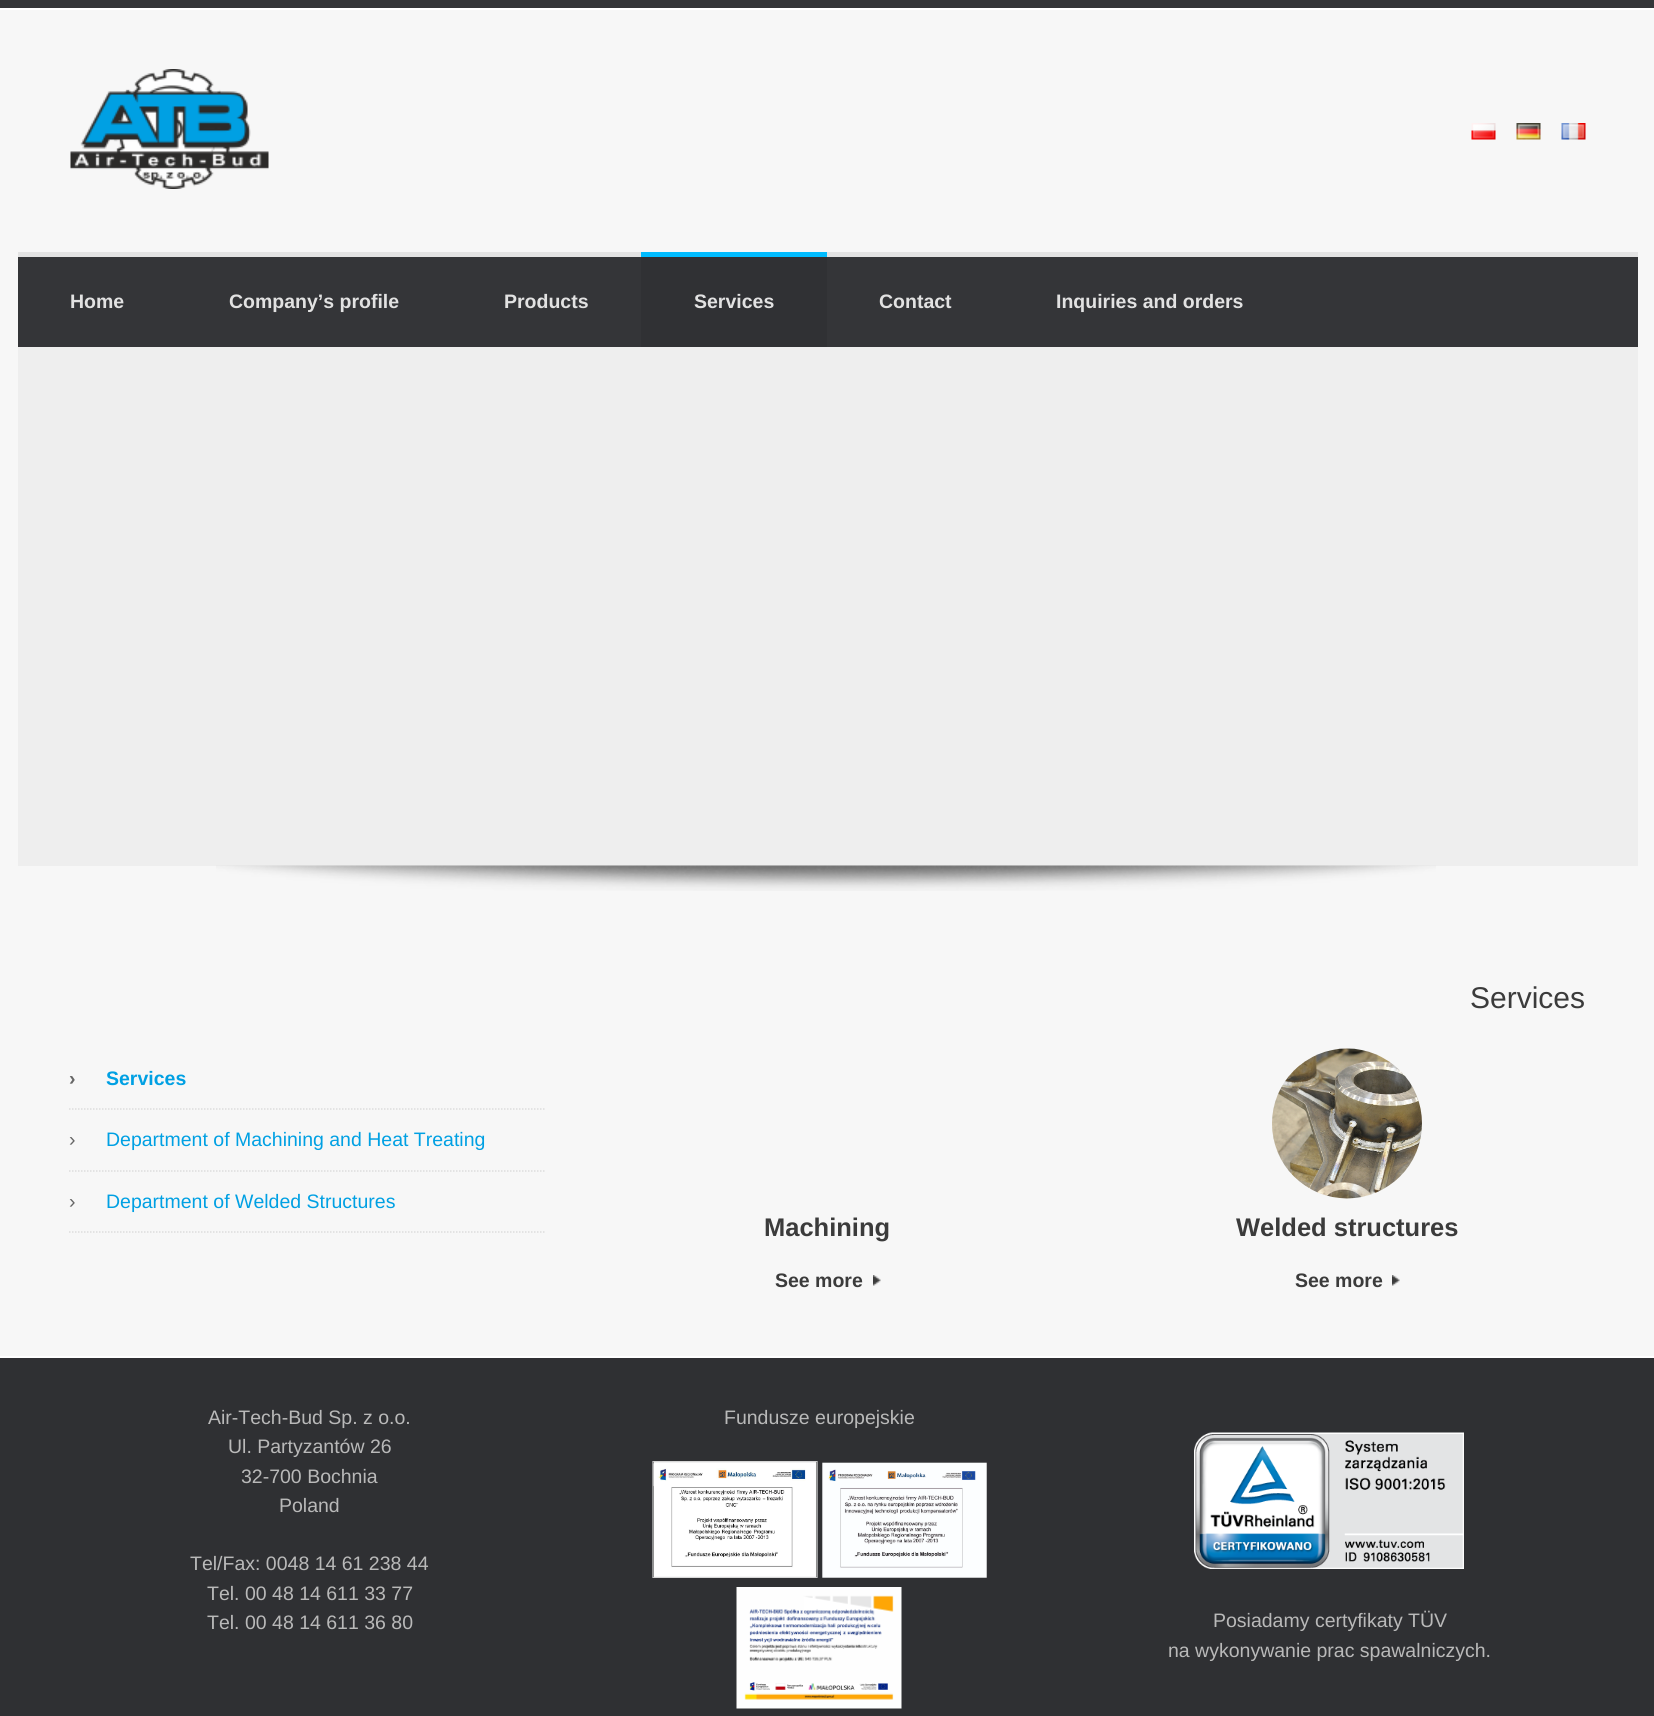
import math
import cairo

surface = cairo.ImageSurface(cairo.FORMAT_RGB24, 1654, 1716)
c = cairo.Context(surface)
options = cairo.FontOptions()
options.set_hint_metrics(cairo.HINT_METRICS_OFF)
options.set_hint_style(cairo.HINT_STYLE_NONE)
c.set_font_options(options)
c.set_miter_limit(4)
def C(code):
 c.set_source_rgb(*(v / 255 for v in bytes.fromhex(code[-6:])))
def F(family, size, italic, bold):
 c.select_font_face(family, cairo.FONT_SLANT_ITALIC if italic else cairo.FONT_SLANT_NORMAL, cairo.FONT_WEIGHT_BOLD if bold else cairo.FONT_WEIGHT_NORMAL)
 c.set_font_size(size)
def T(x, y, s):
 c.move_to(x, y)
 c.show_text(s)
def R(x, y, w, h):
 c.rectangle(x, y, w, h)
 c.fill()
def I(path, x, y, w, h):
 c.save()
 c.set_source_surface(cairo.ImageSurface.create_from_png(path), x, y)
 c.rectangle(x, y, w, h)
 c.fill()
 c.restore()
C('f7f7f7')
c.paint()
C('343538')
R(0,0,1654,8)
C('ffffff')
R(0,8,1654,2)
I('1.png',70,69,199,120)
I('2.png',1471,123,25,17)
I('3.png',1516,123,25,17)
I('4.png',1561,123,25,17)
C('343538')
R(18,257,1620,90)
C('e3e3e3')
R(18,252,1620,5)
F('Liberation Sans',19.5,0,1)
C('e2e2e2')
T(70,308,'Home')
T(229,308,'Company’s profile')
T(504,308,'Products')
C('303134')
R(641,257,186,90)
C('00bcff')
R(641,252,186,5)
C('e2e2e2')
T(694,308,'Services')
T(879,308,'Contact')
T(1056,308,'Inquiries and orders')
C('eeeeee')
R(18,347,1620,519)
I('5.png',216,865,1220,26)
F('Liberation Sans',30,0,0)
C('3b3b3b')
T(1470,1008,'Services')
c.new_path()
c.move_to(69,1109)
c.line_to(544.5,1109)
C('dddddd')
c.set_line_width(1.5)
c.set_dash([1.5,1.5])
c.stroke()
F('Liberation Sans',19.5,0,1)
C('666666')
T(69,1085,'›')
C('00a0e3')
T(106,1085,'Services')
c.new_path()
c.move_to(69,1171)
c.line_to(544.5,1171)
C('dddddd')
c.stroke()
F('Liberation Sans',19.5,0,0)
C('666666')
T(69,1146,'›')
C('00a0e3')
T(106,1146,'Department of Machining and Heat Treating')
c.new_path()
c.move_to(69,1232)
c.line_to(544.5,1232)
C('dddddd')
c.stroke()
C('666666')
T(69,1208,'›')
C('00a0e3')
T(106,1208,'Department of Welded Structures')
F('Liberation Sans',25.5,0,1)
C('3b3b3b')
T(764,1236,'Machining')
F('Liberation Sans',19.5,0,1)
T(775,1287,'See more')
I('6.png',873,1275,8,11)
I('7.png',1272,1048,150,151)
F('Liberation Sans',25.5,0,1)
T(1236,1236,'Welded structures')
F('Liberation Sans',19.5,0,1)
T(1295,1287,'See more')
I('6.png',1392,1275,8,11)
C('2f3033')
R(0,1358,1654,358)
C('ffffff')
R(0,1356,1654,2)
F('Liberation Sans',19.5,0,0)
C('b9b9b9')
T(208,1424,'Air-Tech-Bud Sp. z o.o.')
T(228,1453,'Ul. Partyzantów 26')
T(241,1483,'32-700 Bochnia')
T(279,1512,'Poland')
T(190,1570,'Tel/Fax: 0048 14 61 238 44')
T(207,1600,'Tel. 00 48 14 611 33 77')
T(207,1629,'Tel. 00 48 14 611 36 80')
T(724,1424,'Fundusze europejskie')
I('8.png',652,1461,166,117)
I('9.png',822,1462,165,116)
I('10.png',736,1587,166,122)
I('11.png',1194,1432,270,137)
T(1213,1627,'Posiadamy certyfikaty TÜV')
T(1168,1657,'na wykonywanie prac spawalniczych.')
surface.write_to_png('o.png')
